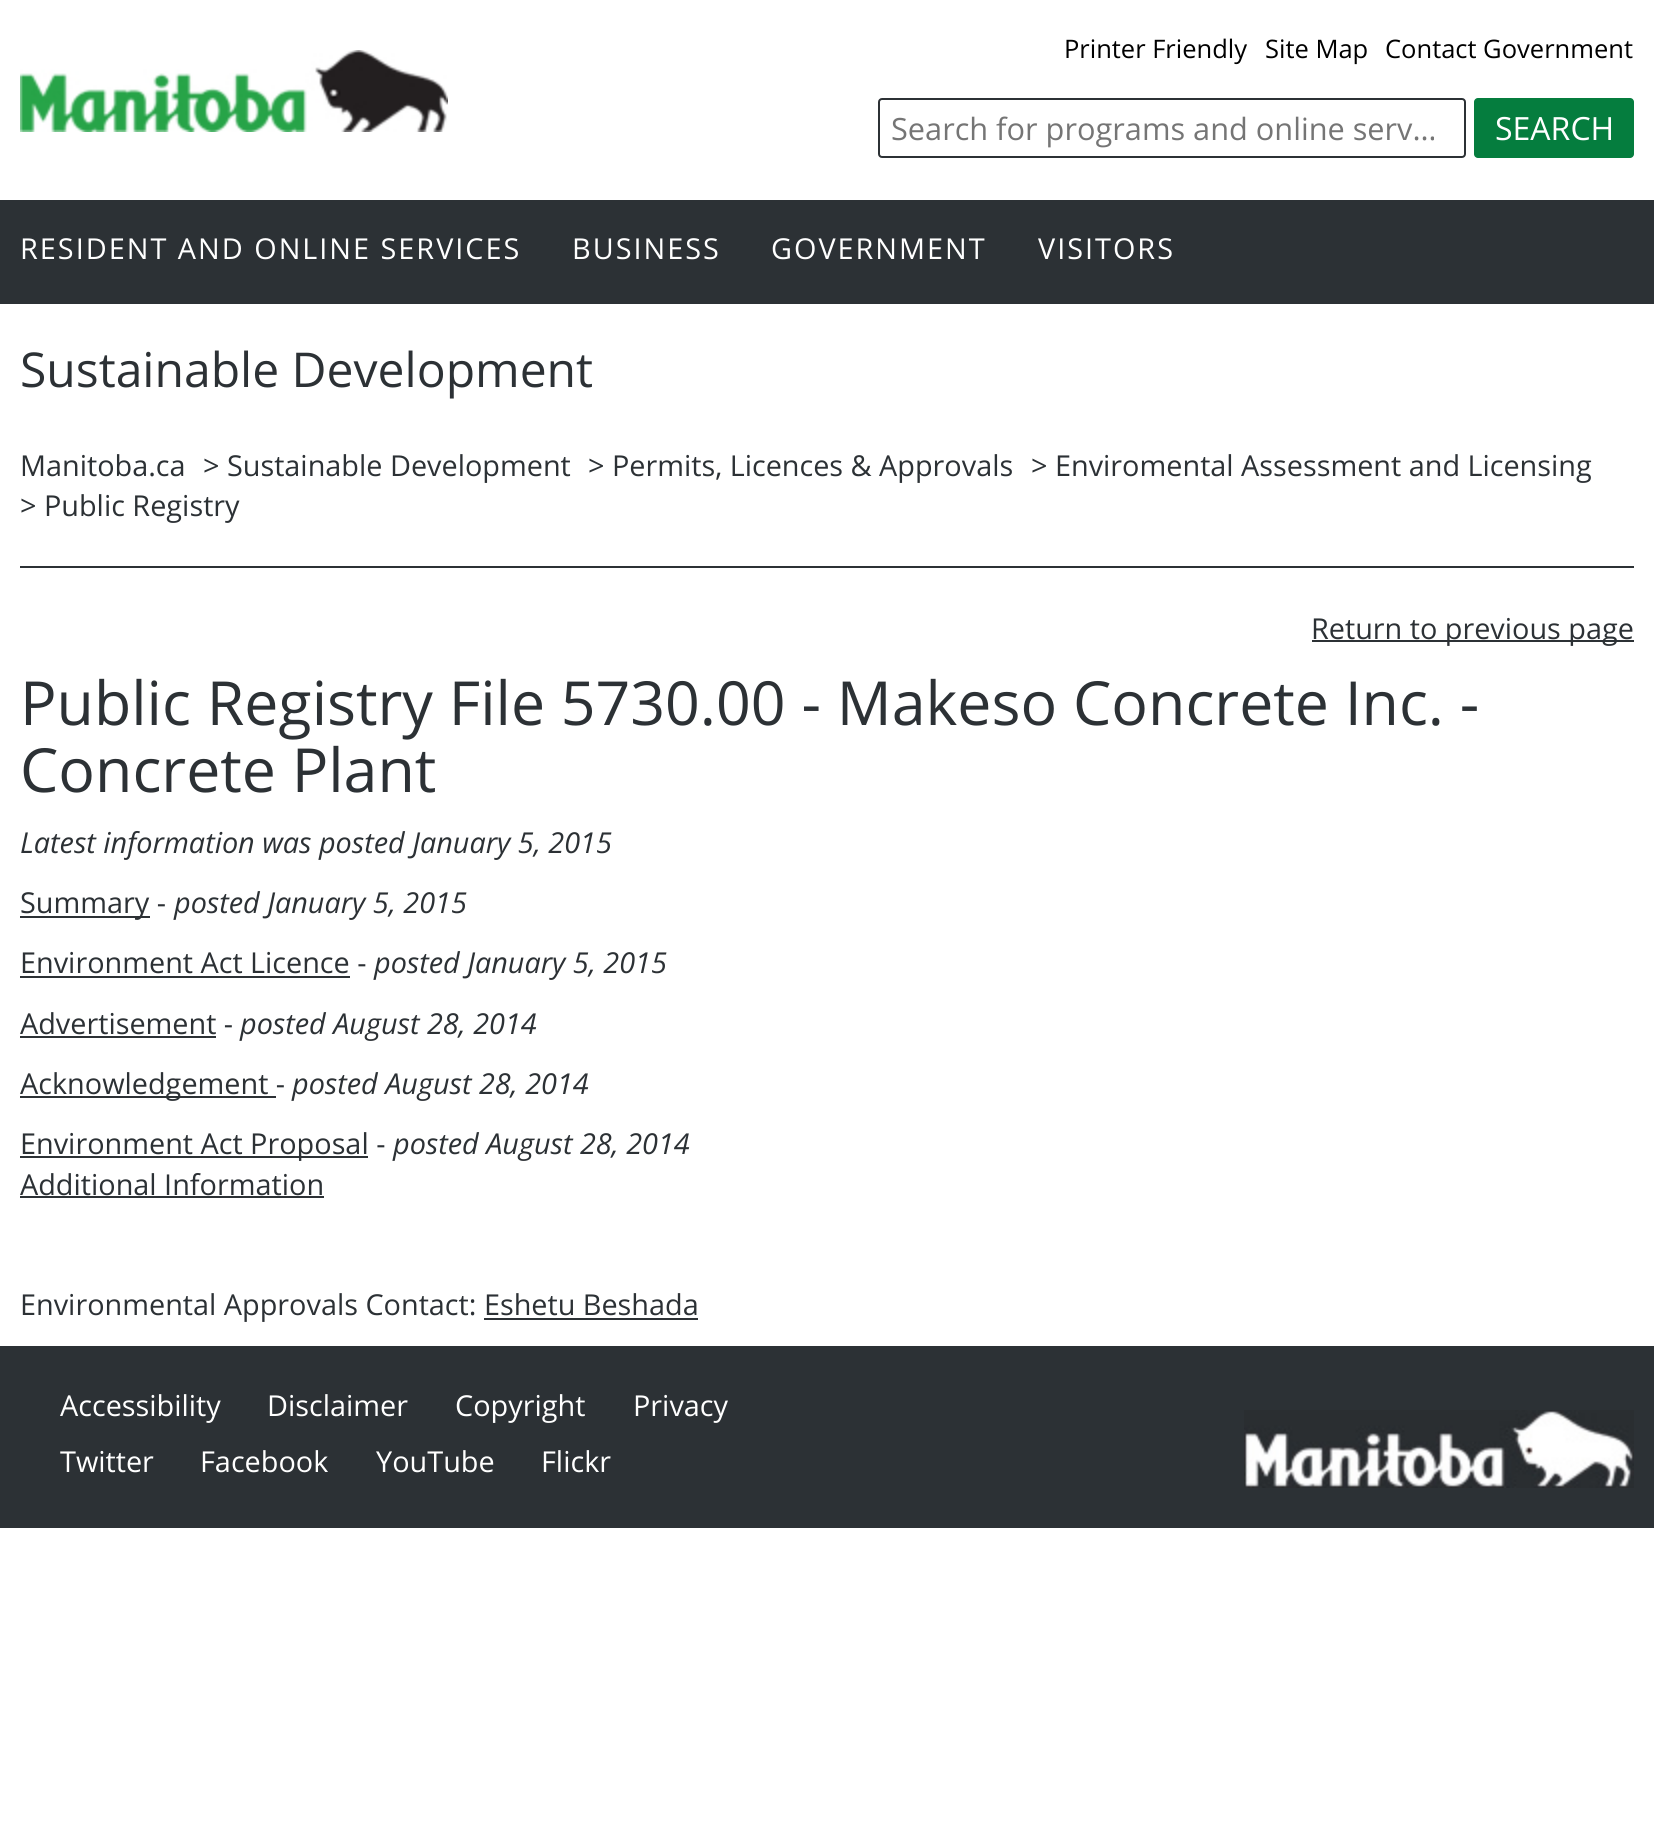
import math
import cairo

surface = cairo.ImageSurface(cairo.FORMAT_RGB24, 1654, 1832)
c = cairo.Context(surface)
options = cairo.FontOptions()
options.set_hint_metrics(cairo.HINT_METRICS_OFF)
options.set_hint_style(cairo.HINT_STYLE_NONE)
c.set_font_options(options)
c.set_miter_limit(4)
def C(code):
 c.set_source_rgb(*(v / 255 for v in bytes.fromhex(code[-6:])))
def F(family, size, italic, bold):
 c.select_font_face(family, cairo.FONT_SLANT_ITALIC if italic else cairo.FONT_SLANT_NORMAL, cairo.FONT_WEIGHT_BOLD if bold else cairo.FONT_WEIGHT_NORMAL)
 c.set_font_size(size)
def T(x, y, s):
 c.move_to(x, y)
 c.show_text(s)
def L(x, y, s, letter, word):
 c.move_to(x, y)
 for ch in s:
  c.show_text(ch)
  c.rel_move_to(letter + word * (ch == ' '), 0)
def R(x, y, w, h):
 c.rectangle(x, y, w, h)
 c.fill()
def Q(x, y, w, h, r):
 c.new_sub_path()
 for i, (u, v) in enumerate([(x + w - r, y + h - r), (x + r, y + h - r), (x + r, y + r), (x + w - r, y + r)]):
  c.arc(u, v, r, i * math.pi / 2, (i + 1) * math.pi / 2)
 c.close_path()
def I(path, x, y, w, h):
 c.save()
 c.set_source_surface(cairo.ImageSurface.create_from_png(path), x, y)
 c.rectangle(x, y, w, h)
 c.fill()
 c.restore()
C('ffffff')
c.paint()
F('Open Sans',25.5,0,0)
C('000000')
T(1064,58,'Printer Friendly')
T(1265,58,'Site Map')
T(1385,58,'Contact Government')
I('1.png',20,50,428,82)
Q(879,99,586,58,3)
C('2c3135')
c.stroke()
F('Open Sans',30.7,0,0)
C('757575')
T(891,140,'Search for programs and online serv…')
C('057d3e')
Q(1474,98,160,60,4)
c.fill()
F('Open Sans',32,0,0)
C('ffffff')
T(1495,140,'SEARCH')
C('2c3135')
R(0,200,1654,104)
F('Open Sans',28.8,0,0)
C('ffffff')
L(20,259,'RESIDENT AND ONLINE SERVICES',2,0)
L(572,259,'BUSINESS',2,0)
L(771,259,'GOVERNMENT',2,0)
L(1038,259,'VISITORS',2,0)
F('Open Sans',48,0,0)
C('2c3135')
T(20,387,'Sustainable Development')
R(20,566,1614,2)
F('Open Sans',28.8,0,0)
T(20,476,'Manitoba.ca')
T(203,476,'> Sustainable Development')
T(588,476,'> Permits, Licences & Approvals')
T(1031,476,'> Enviromental Assessment and Licensing')
T(20,516,'> Public Registry')
R(1312,640,322,2)
T(1311,639,'Return to previous page')
F('Open Sans',60.8,0,0)
T(20,725,'Public Registry File 5730.00 - Makeso Concrete Inc. -')
T(20,792,'Concrete Plant')
F('Open Sans',28.8,1,0)
T(20,853,'Latest information was posted January 5, 2015')
R(20,916,130,2)
F('Open Sans',28.8,0,0)
T(20,913,'Summary -')
F('Open Sans',28.8,1,0)
T(174,913,'posted January 5, 2015')
F('Open Sans',28.8,0,0)
T(20,973,'Environment Act Licence -')
R(20,976,330,2)
F('Open Sans',28.8,1,0)
T(374,973,'posted January 5, 2015')
F('Open Sans',28.8,0,0)
T(20,1034,'Advertisement -')
R(20,1036,196,2)
F('Open Sans',28.8,1,0)
T(240,1034,'posted August 28, 2014')
R(20,1096,256,2)
F('Open Sans',28.8,0,0)
T(20,1094,'Acknowledgement -')
F('Open Sans',28.8,1,0)
T(292,1094,'posted August 28, 2014')
R(20,1156,348,2)
F('Open Sans',28.8,0,0)
T(20,1154,'Environment Act Proposal -')
F('Open Sans',28.8,1,0)
T(393,1154,'posted August 28, 2014')
F('Open Sans',28.8,0,0)
T(20,1195,'Additional Information')
R(20,1196,304,2)
T(20,1315,'Environmental Approvals Contact: Eshetu Beshada')
R(484,1318,214,2)
R(0,1346,1654,182)
C('ffffff')
T(60,1416,'Accessibility')
T(267,1416,'Disclaimer')
T(455,1416,'Copyright')
T(633,1416,'Privacy')
T(60,1472,'Twitter')
T(200,1472,'Facebook')
T(376,1472,'YouTube')
T(541,1472,'Flickr')
I('2.png',1244,1410,390,78)
surface.write_to_png('o.png')
